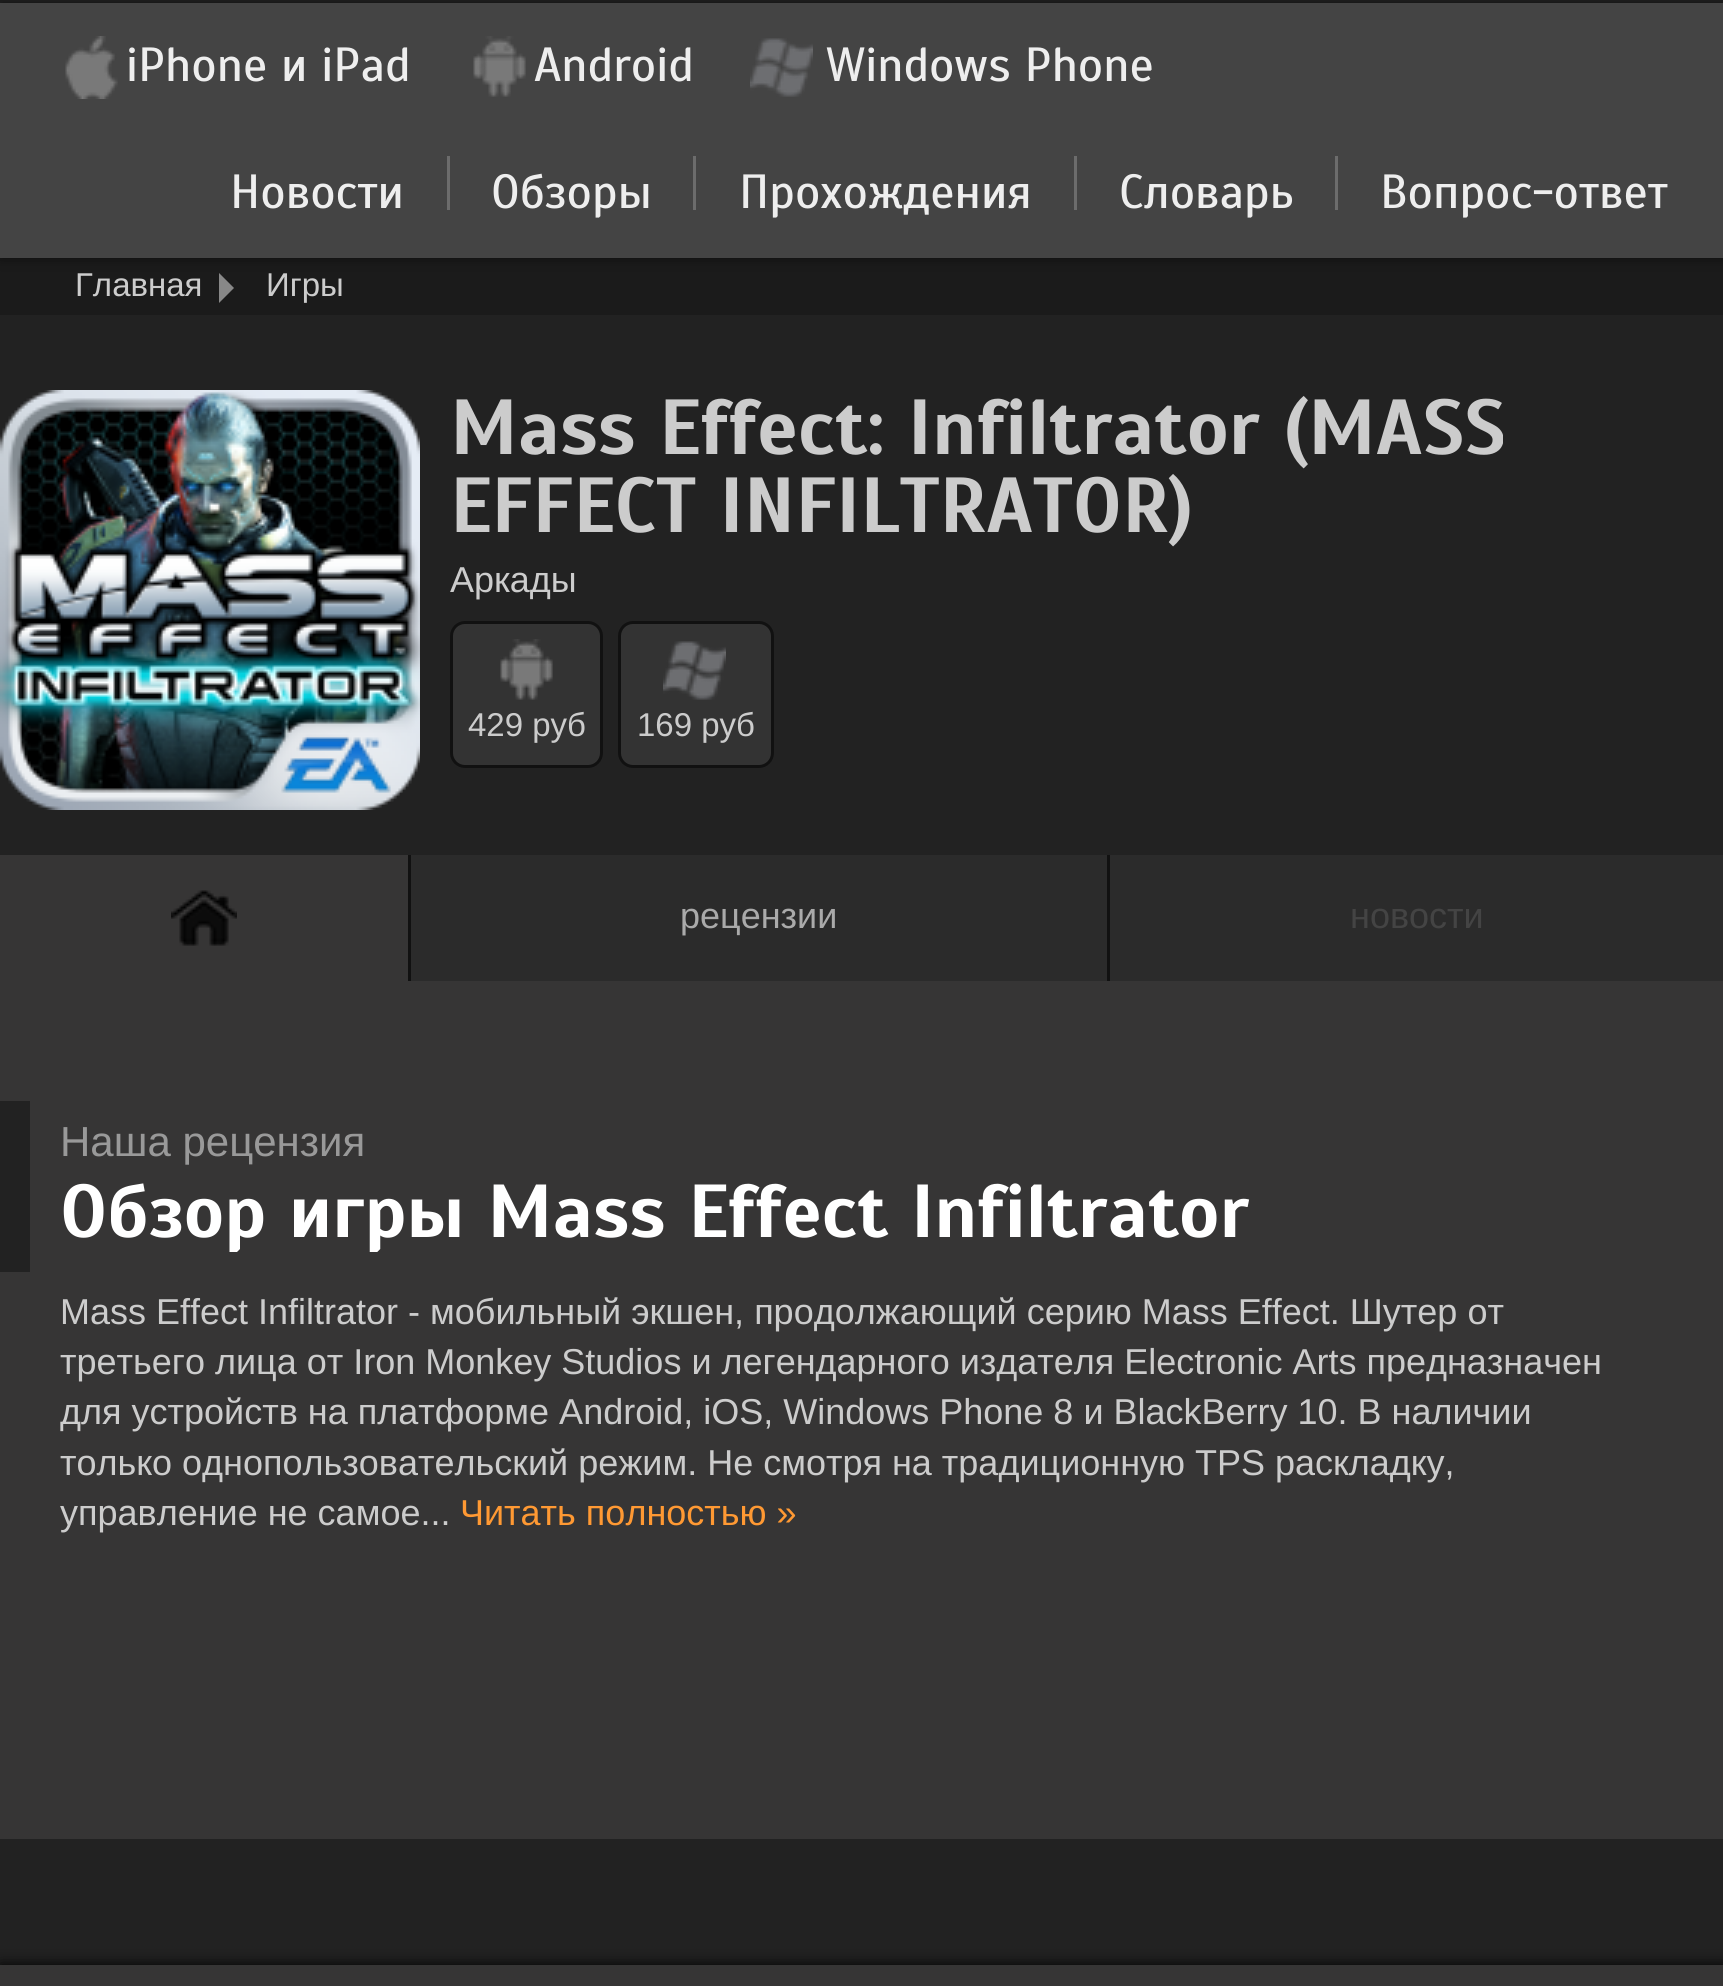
import math
import cairo

surface = cairo.ImageSurface(cairo.FORMAT_RGB24, 1723, 1986)
c = cairo.Context(surface)
options = cairo.FontOptions()
options.set_hint_metrics(cairo.HINT_METRICS_OFF)
options.set_hint_style(cairo.HINT_STYLE_NONE)
c.set_font_options(options)
c.set_miter_limit(4)
def C(code):
 c.set_source_rgb(*(v / 255 for v in bytes.fromhex(code[-6:])))
def F(family, size, italic, bold):
 c.select_font_face(family, cairo.FONT_SLANT_ITALIC if italic else cairo.FONT_SLANT_NORMAL, cairo.FONT_WEIGHT_BOLD if bold else cairo.FONT_WEIGHT_NORMAL)
 c.set_font_size(size)
def T(x, y, s):
 c.move_to(x, y)
 c.show_text(s)
def R(x, y, w, h):
 c.rectangle(x, y, w, h)
 c.fill()
def Q(x, y, w, h, r):
 c.new_sub_path()
 for i, (u, v) in enumerate([(x + w - r, y + h - r), (x + r, y + h - r), (x + r, y + r), (x + w - r, y + r)]):
  c.arc(u, v, r, i * math.pi / 2, (i + 1) * math.pi / 2)
 c.close_path()
def S(x, y, w, h, r, blur, alpha):
 c.push_group_with_content(cairo.CONTENT_ALPHA)
 c.set_operator(cairo.OPERATOR_SOURCE)
 for i in range(15, -16, -2):
  e = blur * i / 6
  if min(w, h) + 2 * e > 0:
   c.set_source_rgba(0, 0, 0, alpha * math.erfc((i - 1) / 8.5) / 2)
   Q(x - e, y - e, w + 2 * e, h + 2 * e, max(0, min(r + e + blur * .6, min(w, h) / 2 + e)))
   c.fill()
 c.mask(c.pop_group())
def I(path, x, y, w, h):
 c.save()
 c.set_source_surface(cairo.ImageSurface.create_from_png(path), x, y)
 c.rectangle(x, y, w, h)
 c.fill()
 c.restore()
C('222222')
c.paint()
C('000000')
S(0,3,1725,255,0,7.5,.5)
C('444444')
R(0,3,1723,255)
I('1.png',65,36,53,63)
F('Scada',48,0,0)
C('eeeeee')
T(126,81,'iPhone и iPad')
I('2.png',473,36,53,61)
T(534,81,'Android')
I('3.png',750,38,63,59)
T(826,81,'Windows Phone')
C('6c6c6c')
R(447,156,3,54)
C('eeeeee')
T(230,208,'Новости')
C('6c6c6c')
R(693,156,3,54)
C('eeeeee')
T(491,208,'Обзоры')
C('6c6c6c')
R(1074,156,3,54)
C('eeeeee')
T(739,208,'Прохождения')
C('6c6c6c')
R(1335,156,3,54)
C('eeeeee')
T(1119,208,'Словарь')
T(1380,208,'Вопрос-ответ')
c.set_source_rgba(0,0,0,0.2)
R(0,258,1723,57)
F('Liberation Sans',33,0,0)
C('cccccc')
T(75,296,'Главная')
C('888888')
c.new_path()
c.move_to(219,303)
c.line_to(219,273)
c.line_to(234,288)
c.close_path()
c.fill()
C('cccccc')
T(266,296,'Игры')
I('4.png',0,390,420,420)
F('Scada',78,0,1)
T(450,454,'Mass Effect: Infiltrator (MASS')
T(450,532,'EFFECT INFILTRATOR)')
F('Liberation Sans',36,0,0)
T(450,592,'Аркады')
C('333333')
Q(451.5,622.5,150,144,13.5)
c.fill_preserve()
C('111111')
c.set_line_width(3)
c.stroke()
I('5.png',500,639,53,61)
F('Liberation Sans',33,0,0)
C('cccccc')
T(468,736,'429 руб')
C('333333')
Q(619.5,622.5,153,144,13.5)
c.fill_preserve()
C('111111')
c.stroke()
I('6.png',663,641,63,59)
C('cccccc')
T(637,736,'169 руб')
C('363535')
R(0,855,408,126)
C('111111')
R(408,855,3,126)
I('7.png',171,890,66,56)
C('2b2b2b')
R(411,855,696,126)
C('111111')
R(1107,855,3,126)
F('Liberation Sans',36,0,0)
C('aaaaaa')
T(680,928,'рецензии')
C('2b2b2b')
R(1110,855,613,126)
C('444444')
T(1350,928,'новости')
C('363535')
R(0,981,1723,858)
C('222222')
R(0,1101,30,171)
F('Liberation Sans',42,0,0)
C('999999')
T(60,1156,'Наша рецензия')
F('Scada',75,0,1)
C('ffffff')
T(60,1237,'Обзор игры Mass Effect Infiltrator')
F('Liberation Sans',36,0,0)
C('cccccc')
T(60,1324,'Mass Effect Infiltrator - мобильный экшен, продолжающий серию Mass Effect. Шутер от')
T(60,1374,'третьего лица от Iron Monkey Studios и легендарного издателя Electronic Arts предназначен')
T(60,1424,'для устройств на платформе Android, iOS, Windows Phone 8 и BlackBerry 10. В наличии')
T(60,1475,'только однопользовательский режим. Не смотря на традиционную TPS раскладку,')
T(60,1525,'управление не самое...')
C('ff9933')
T(460,1525,'Читать полностью »')
C('000000')
S(0,1965,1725,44,0,7.5,1)
C('363535')
R(0,1965,1723,21)
surface.write_to_png('o.png')
